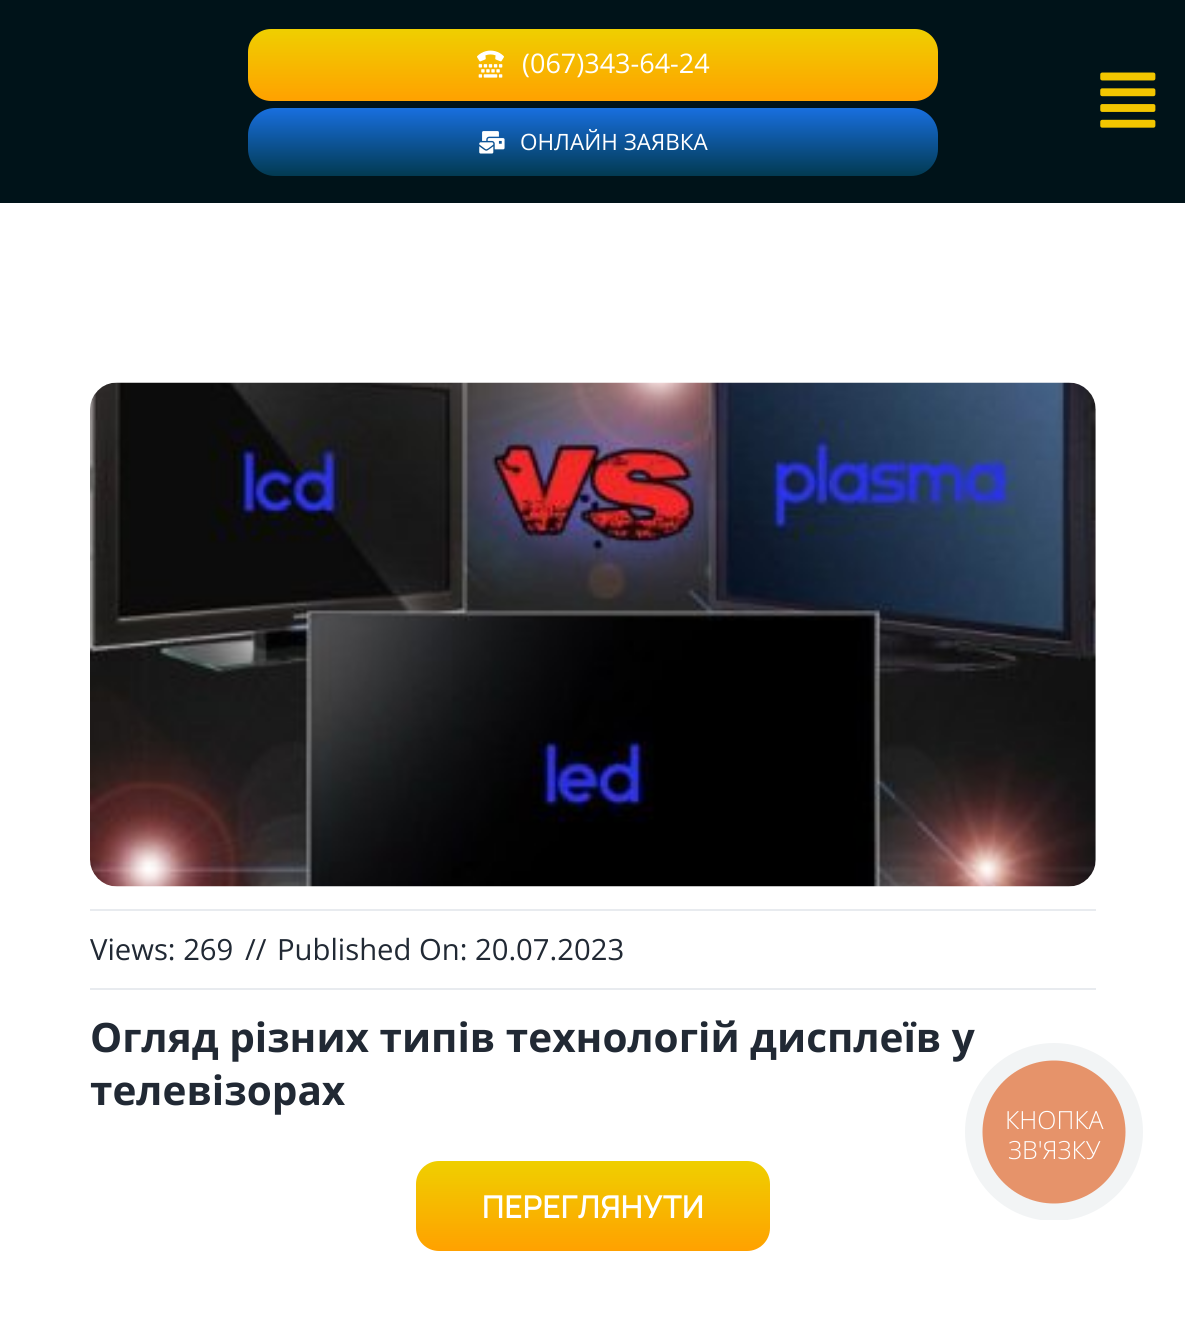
import math
import cairo

surface = cairo.ImageSurface(cairo.FORMAT_RGB24, 1185, 1330)
c = cairo.Context(surface)
options = cairo.FontOptions()
options.set_hint_metrics(cairo.HINT_METRICS_OFF)
options.set_hint_style(cairo.HINT_STYLE_NONE)
c.set_font_options(options)
c.set_miter_limit(4)
def C(code):
 c.set_source_rgb(*(v / 255 for v in bytes.fromhex(code[-6:])))
def F(family, size, italic, bold):
 c.select_font_face(family, cairo.FONT_SLANT_ITALIC if italic else cairo.FONT_SLANT_NORMAL, cairo.FONT_WEIGHT_BOLD if bold else cairo.FONT_WEIGHT_NORMAL)
 c.set_font_size(size)
def T(x, y, s):
 c.move_to(x, y)
 c.show_text(s)
def R(x, y, w, h):
 c.rectangle(x, y, w, h)
 c.fill()
def Q(x, y, w, h, r):
 c.new_sub_path()
 for i, (u, v) in enumerate([(x + w - r, y + h - r), (x + r, y + h - r), (x + r, y + r), (x + w - r, y + r)]):
  c.arc(u, v, r, i * math.pi / 2, (i + 1) * math.pi / 2)
 c.close_path()
def I(path, x, y, w, h):
 c.save()
 c.set_source_surface(cairo.ImageSurface.create_from_png(path), x, y)
 c.rectangle(x, y, w, h)
 c.fill()
 c.restore()
C('ffffff')
c.paint()
C('001319')
R(0,0,1185,203)
gradient = cairo.LinearGradient(593,29,593,101)
gradient.add_color_stop_rgba(0,0.937,0.812,0,1)
gradient.add_color_stop_rgba(1,1,0.631,0,1)
c.set_source(gradient)
Q(248,29,690,72,23)
c.fill()
I('1.png',477,50,27,28)
F('Open Sans',27,0,0)
C('ffffff')
T(522,73,'(067)343-64-24')
gradient = cairo.LinearGradient(593,108,593,176)
gradient.add_color_stop_rgba(0,0.094,0.435,0.875,1)
gradient.add_color_stop_rgba(1,0.008,0.227,0.318,1)
c.set_source(gradient)
Q(248,108,690,68,27)
c.fill()
I('2.png',479,131,26,23)
F('Open Sans',22.5,0,0)
C('ffffff')
T(520,150,'ОНЛАЙН ЗАЯВКА')
I('3.png',1100,72,56,56)
I('4.png',90,382,1006,505)
C('e8ebef')
R(90,909,1006,2)
R(90,988,1006,2)
F('Open Sans',29.25,0,0)
C('212934')
T(90,960,'Views: 269')
T(245,960,'//')
T(277,960,'Published On: 20.07.2023')
F('Open Sans',40.5,0,1)
T(90,1052,'Огляд різних типів технологій дисплеїв у')
T(90,1105,'телевізорах')
gradient = cairo.LinearGradient(593,1161,593,1251)
gradient.add_color_stop_rgba(0,0.937,0.812,0,1)
gradient.add_color_stop_rgba(1,1,0.631,0,1)
c.set_source(gradient)
Q(416,1161,354,90,23)
c.fill()
F('Manrope SemiBold',31.5,0,0)
C('ffffff')
T(482,1218,'ПЕРЕГЛЯНУТИ')
c.save()
c.rectangle(965,1042,178,178)
c.clip()
C('f2f4f5')
c.arc(1054,1132,89,0,2 * math.pi)
c.fill()
c.restore()
C('e6936a')
c.arc(1054,1132,71.5,0,2 * math.pi)
c.fill()
F('Open Sans Light',25,0,0)
C('ffffff')
T(1005,1129,'КНОПКА')
T(1008,1159,'ЗВ\'ЯЗКУ')
surface.write_to_png('o.png')
